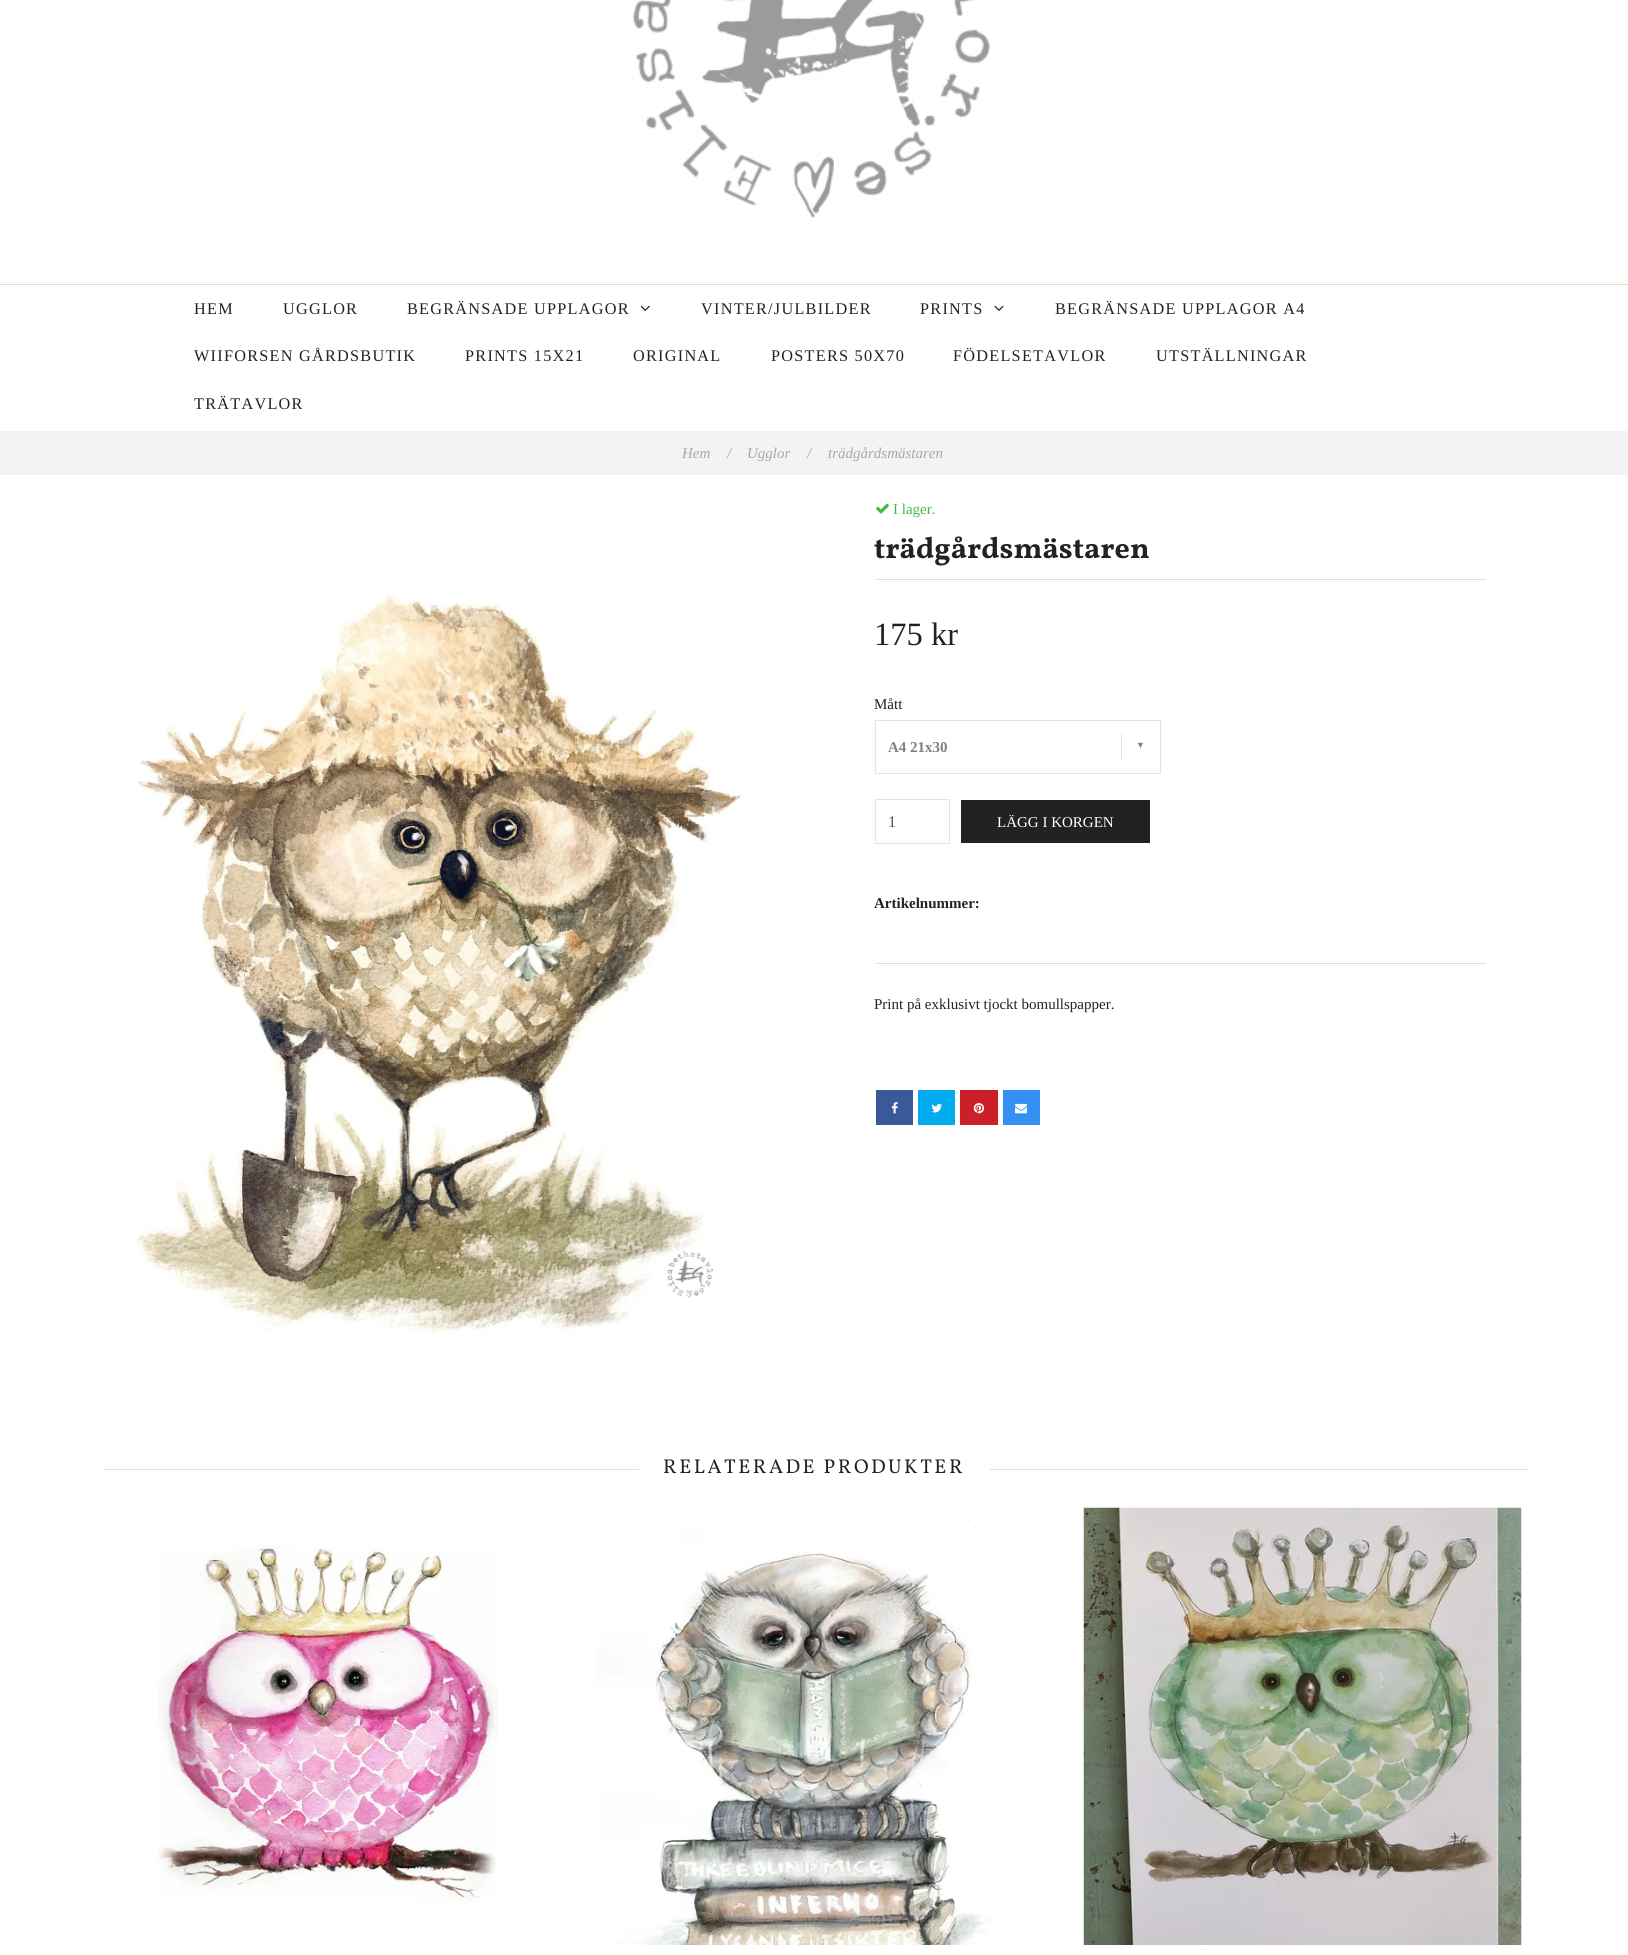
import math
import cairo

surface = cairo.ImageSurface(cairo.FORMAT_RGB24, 1628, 1955)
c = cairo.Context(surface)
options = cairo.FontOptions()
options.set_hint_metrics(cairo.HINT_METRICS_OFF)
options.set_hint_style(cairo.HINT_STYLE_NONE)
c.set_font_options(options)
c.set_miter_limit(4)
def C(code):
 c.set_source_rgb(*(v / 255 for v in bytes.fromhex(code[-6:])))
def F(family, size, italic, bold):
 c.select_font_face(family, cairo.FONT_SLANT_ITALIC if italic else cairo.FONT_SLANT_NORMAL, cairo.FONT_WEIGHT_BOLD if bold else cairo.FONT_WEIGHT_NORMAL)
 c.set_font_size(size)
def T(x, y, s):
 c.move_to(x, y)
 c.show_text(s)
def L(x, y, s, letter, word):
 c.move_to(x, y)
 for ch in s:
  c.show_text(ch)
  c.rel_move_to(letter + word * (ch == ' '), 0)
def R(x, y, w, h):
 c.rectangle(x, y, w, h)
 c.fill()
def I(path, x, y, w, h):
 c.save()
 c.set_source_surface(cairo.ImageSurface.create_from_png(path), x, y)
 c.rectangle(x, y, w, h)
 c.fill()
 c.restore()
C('ffffff')
c.paint()
I('1.png',632,0,359,218)
C('eddbcc')
R(0,284,1628,1)
F('Liberation Serif',16.25,0,0)
C('222222')
L(194,314,'HEM',1.25,0)
L(283,314,'UGGLOR',1.25,0)
L(407,314,'BEGRÄNSADE UPPLAGOR',1.25,0)
I('2.png',640,305,10,6)
L(701,314,'VINTER/JULBILDER',1.25,0)
L(920,314,'PRINTS',1.25,0)
I('3.png',994,305,10,6)
L(1055,314,'BEGRÄNSADE UPPLAGOR A4',1.25,0)
L(194,361,'WIIFORSEN GÅRDSBUTIK',1.25,0)
L(465,361,'PRINTS 15X21',1.25,0)
L(633,361,'ORIGINAL',1.25,0)
L(771,361,'POSTERS 50X70',1.25,0)
L(953,361,'FÖDELSETAVLOR',1.25,0)
L(1156,361,'UTSTÄLLNINGAR',1.25,0)
L(194,409,'TRÄTAVLOR',1.25,0)
C('f3f3f3')
R(0,431,1628,44)
F('Liberation Serif',15,1,0)
C('a7a7a7')
T(682,458,'Hem')
T(727,458,'/')
T(747,458,'Ugglor')
T(807,458,'/')
T(828,458,'trädgårdsmästaren')
I('4.png',136,593,606,743)
I('5.png',876,503,13,11)
F('Liberation Serif',15,0,0)
C('44b944')
T(893,514,'I lager.')
C('eddbcc')
R(875,579,611,1)
F('Vollkorn',30,0,1)
C('222222')
T(874,558,'trädgårdsmästaren')
F('Liberation Serif',32.5,0,0)
T(874,645,'175 kr')
F('Liberation Serif',15,0,0)
T(874,709,'Mått')
c.rectangle(875.5,720.5,285,53)
C('e4e4e4')
c.set_line_width(1)
c.stroke()
F('Liberation Serif',15,0,1)
C('808080')
T(888,752,'A4 21x30')
C('e5e5e5')
R(1121,734,1,26)
F('Liberation Serif',9,0,1)
C('808080')
T(1136,748,'▼')
c.rectangle(875.5,799.5,74,44)
C('e4e4e4')
c.stroke()
F('Liberation Serif',16.25,0,0)
C('555555')
T(888,827,'1')
C('222222')
R(961,800,189,43)
F('Liberation Serif',15,0,0)
C('ffffff')
T(997,827,'LÄGG I KORGEN')
F('Liberation Serif',15,0,1)
C('222222')
T(874,908,'Artikelnummer:')
C('eddbcc')
R(875,963,611,1)
F('Liberation Serif',15,0,0)
C('222222')
T(874,1009,'Print på exklusivt tjockt bomullspapper.')
C('3b5998')
R(876,1090,37,35)
I('6.png',891,1102,7,12)
C('00aced')
R(918,1090,37,35)
I('7.png',931,1103,11,10)
C('cb2027')
R(960,1090,38,35)
I('8.png',973,1103,11,11)
C('3490f3')
R(1003,1090,37,35)
I('9.png',1015,1103,12,11)
C('eddbcc')
R(103,1469,1425,1)
C('ffffff')
R(639,1469,351,1)
F('Vollkorn',20,0,0)
C('222222')
L(663,1473,'RELATERADE PRODUKTER',2.5,0)
I('10.png',157,1546,341,356)
I('11.png',596,1526,397,419)
I('12.png',1083,1507,439,438)
surface.write_to_png('o.png')
